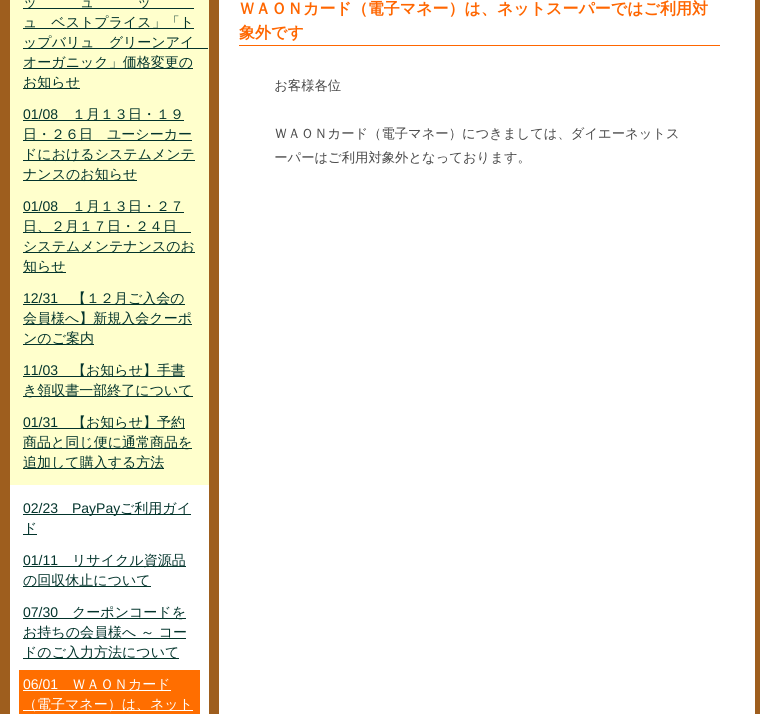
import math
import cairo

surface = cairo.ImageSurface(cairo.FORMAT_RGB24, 760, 714)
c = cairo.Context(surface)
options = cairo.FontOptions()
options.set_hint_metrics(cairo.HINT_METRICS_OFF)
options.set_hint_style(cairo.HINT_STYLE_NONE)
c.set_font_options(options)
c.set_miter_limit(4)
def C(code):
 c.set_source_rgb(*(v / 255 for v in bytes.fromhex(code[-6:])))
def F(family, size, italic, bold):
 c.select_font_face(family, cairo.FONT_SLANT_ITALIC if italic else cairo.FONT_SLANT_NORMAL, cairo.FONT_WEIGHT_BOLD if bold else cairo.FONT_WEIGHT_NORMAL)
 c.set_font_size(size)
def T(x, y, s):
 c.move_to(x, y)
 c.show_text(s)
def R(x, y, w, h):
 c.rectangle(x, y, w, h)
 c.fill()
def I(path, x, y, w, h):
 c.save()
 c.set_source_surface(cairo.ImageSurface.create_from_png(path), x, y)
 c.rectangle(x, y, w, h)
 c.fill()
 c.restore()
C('ffffff')
c.paint()
c.rectangle(5,-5,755,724)
C('9e5e1e')
c.set_line_width(10)
c.stroke()
R(209,0,10,714)
C('ffffcc')
R(10,0,199,485)
C('03342c')
R(23,8,171,1)
F('WenQuanYi Zen Hei Medium',14,0,0)
T(23,7,'ッ')
T(80,7,'ュ')
T(137,7,'ッ')
R(23,28,171,1)
T(23,27,'ュ　ベストプライス」「ト')
R(23,48,185,1)
T(23,47,'ップバリュ　グリーンアイ')
R(23,68,170,1)
T(23,67,'オーガニック」価格変更の')
R(23,88,57,1)
T(23,87,'お知らせ')
F('Liberation Sans',14,0,0)
T(23,119,'01/08')
R(23,120,161,1)
F('WenQuanYi Zen Hei Medium',14,0,0)
T(72,119,'１月１３日・１９')
R(23,140,169,1)
T(23,139,'日・２６日　ユーシーカー')
R(23,160,172,1)
T(23,159,'ドにおけるシステムメンテ')
R(23,180,114,1)
T(23,179,'ナンスのお知らせ')
F('Liberation Sans',14,0,0)
T(23,211,'01/08')
R(23,212,161,1)
F('WenQuanYi Zen Hei Medium',14,0,0)
T(72,211,'１月１３日・２７')
R(23,232,168,1)
T(23,231,'日、２月１７日・２４日')
R(23,252,172,1)
T(23,251,'システムメンテナンスのお')
R(23,272,43,1)
T(23,271,'知らせ')
F('Liberation Sans',14,0,0)
T(23,303,'12/31')
R(23,304,162,1)
F('WenQuanYi Zen Hei Medium',14,0,0)
T(72,303,'【１２月ご入会の')
R(23,324,169,1)
T(23,323,'会員様へ】新規入会クーポ')
R(23,344,71,1)
T(23,343,'ンのご案内')
F('Liberation Sans',14,0,0)
T(23,375,'11/03')
R(23,376,162,1)
F('WenQuanYi Zen Hei Medium',14,0,0)
T(72,375,'【お知らせ】手書')
R(23,396,170,1)
T(23,395,'き領収書一部終了について')
F('Liberation Sans',14,0,0)
T(23,427,'01/31')
R(23,428,162,1)
F('WenQuanYi Zen Hei Medium',14,0,0)
T(72,427,'【お知らせ】予約')
R(23,448,169,1)
T(23,447,'商品と同じ便に通常商品を')
R(23,468,141,1)
T(23,467,'追加して購入する方法')
F('Liberation Sans',14,0,0)
T(23,513,'02/23')
R(23,514,168,1)
T(72,513,'PayPay')
F('WenQuanYi Zen Hei Medium',14,0,0)
T(120,513,'ご利用ガイ')
R(23,534,14,1)
T(23,533,'ド')
F('Liberation Sans',14,0,0)
T(23,565,'01/11')
R(23,566,163,1)
F('WenQuanYi Zen Hei Medium',14,0,0)
T(72,565,'リサイクル資源品')
R(23,586,128,1)
T(23,585,'の回収休止について')
F('Liberation Sans',14,0,0)
T(23,617,'07/30')
R(23,618,163,1)
F('WenQuanYi Zen Hei Medium',14,0,0)
T(72,617,'クーポンコードを')
R(23,638,163,1)
T(23,637,'お持ちの会員様へ ～ コー')
R(23,658,156,1)
T(23,657,'ドのご入力方法について')
C('ff6e00')
R(19,670,181,44)
F('Liberation Sans',14,0,0)
C('ffffff')
T(23,689,'06/01')
R(23,690,148,1)
F('WenQuanYi Zen Hei Medium',14,0,0)
T(72,689,'ＷＡＯＮカード')
R(23,710,170,1)
T(23,709,'（電子マネー）は、ネット')
C('ff6600')
R(239,45,481,1)
F('WenQuanYi Zen Hei',16,0,1)
T(239,14,'ＷＡＯＮカード（電子マネー）は、ネットスーパーではご利用対')
T(239,38,'象外です')
I('1.png',275,78,403,87)
surface.write_to_png('o.png')
